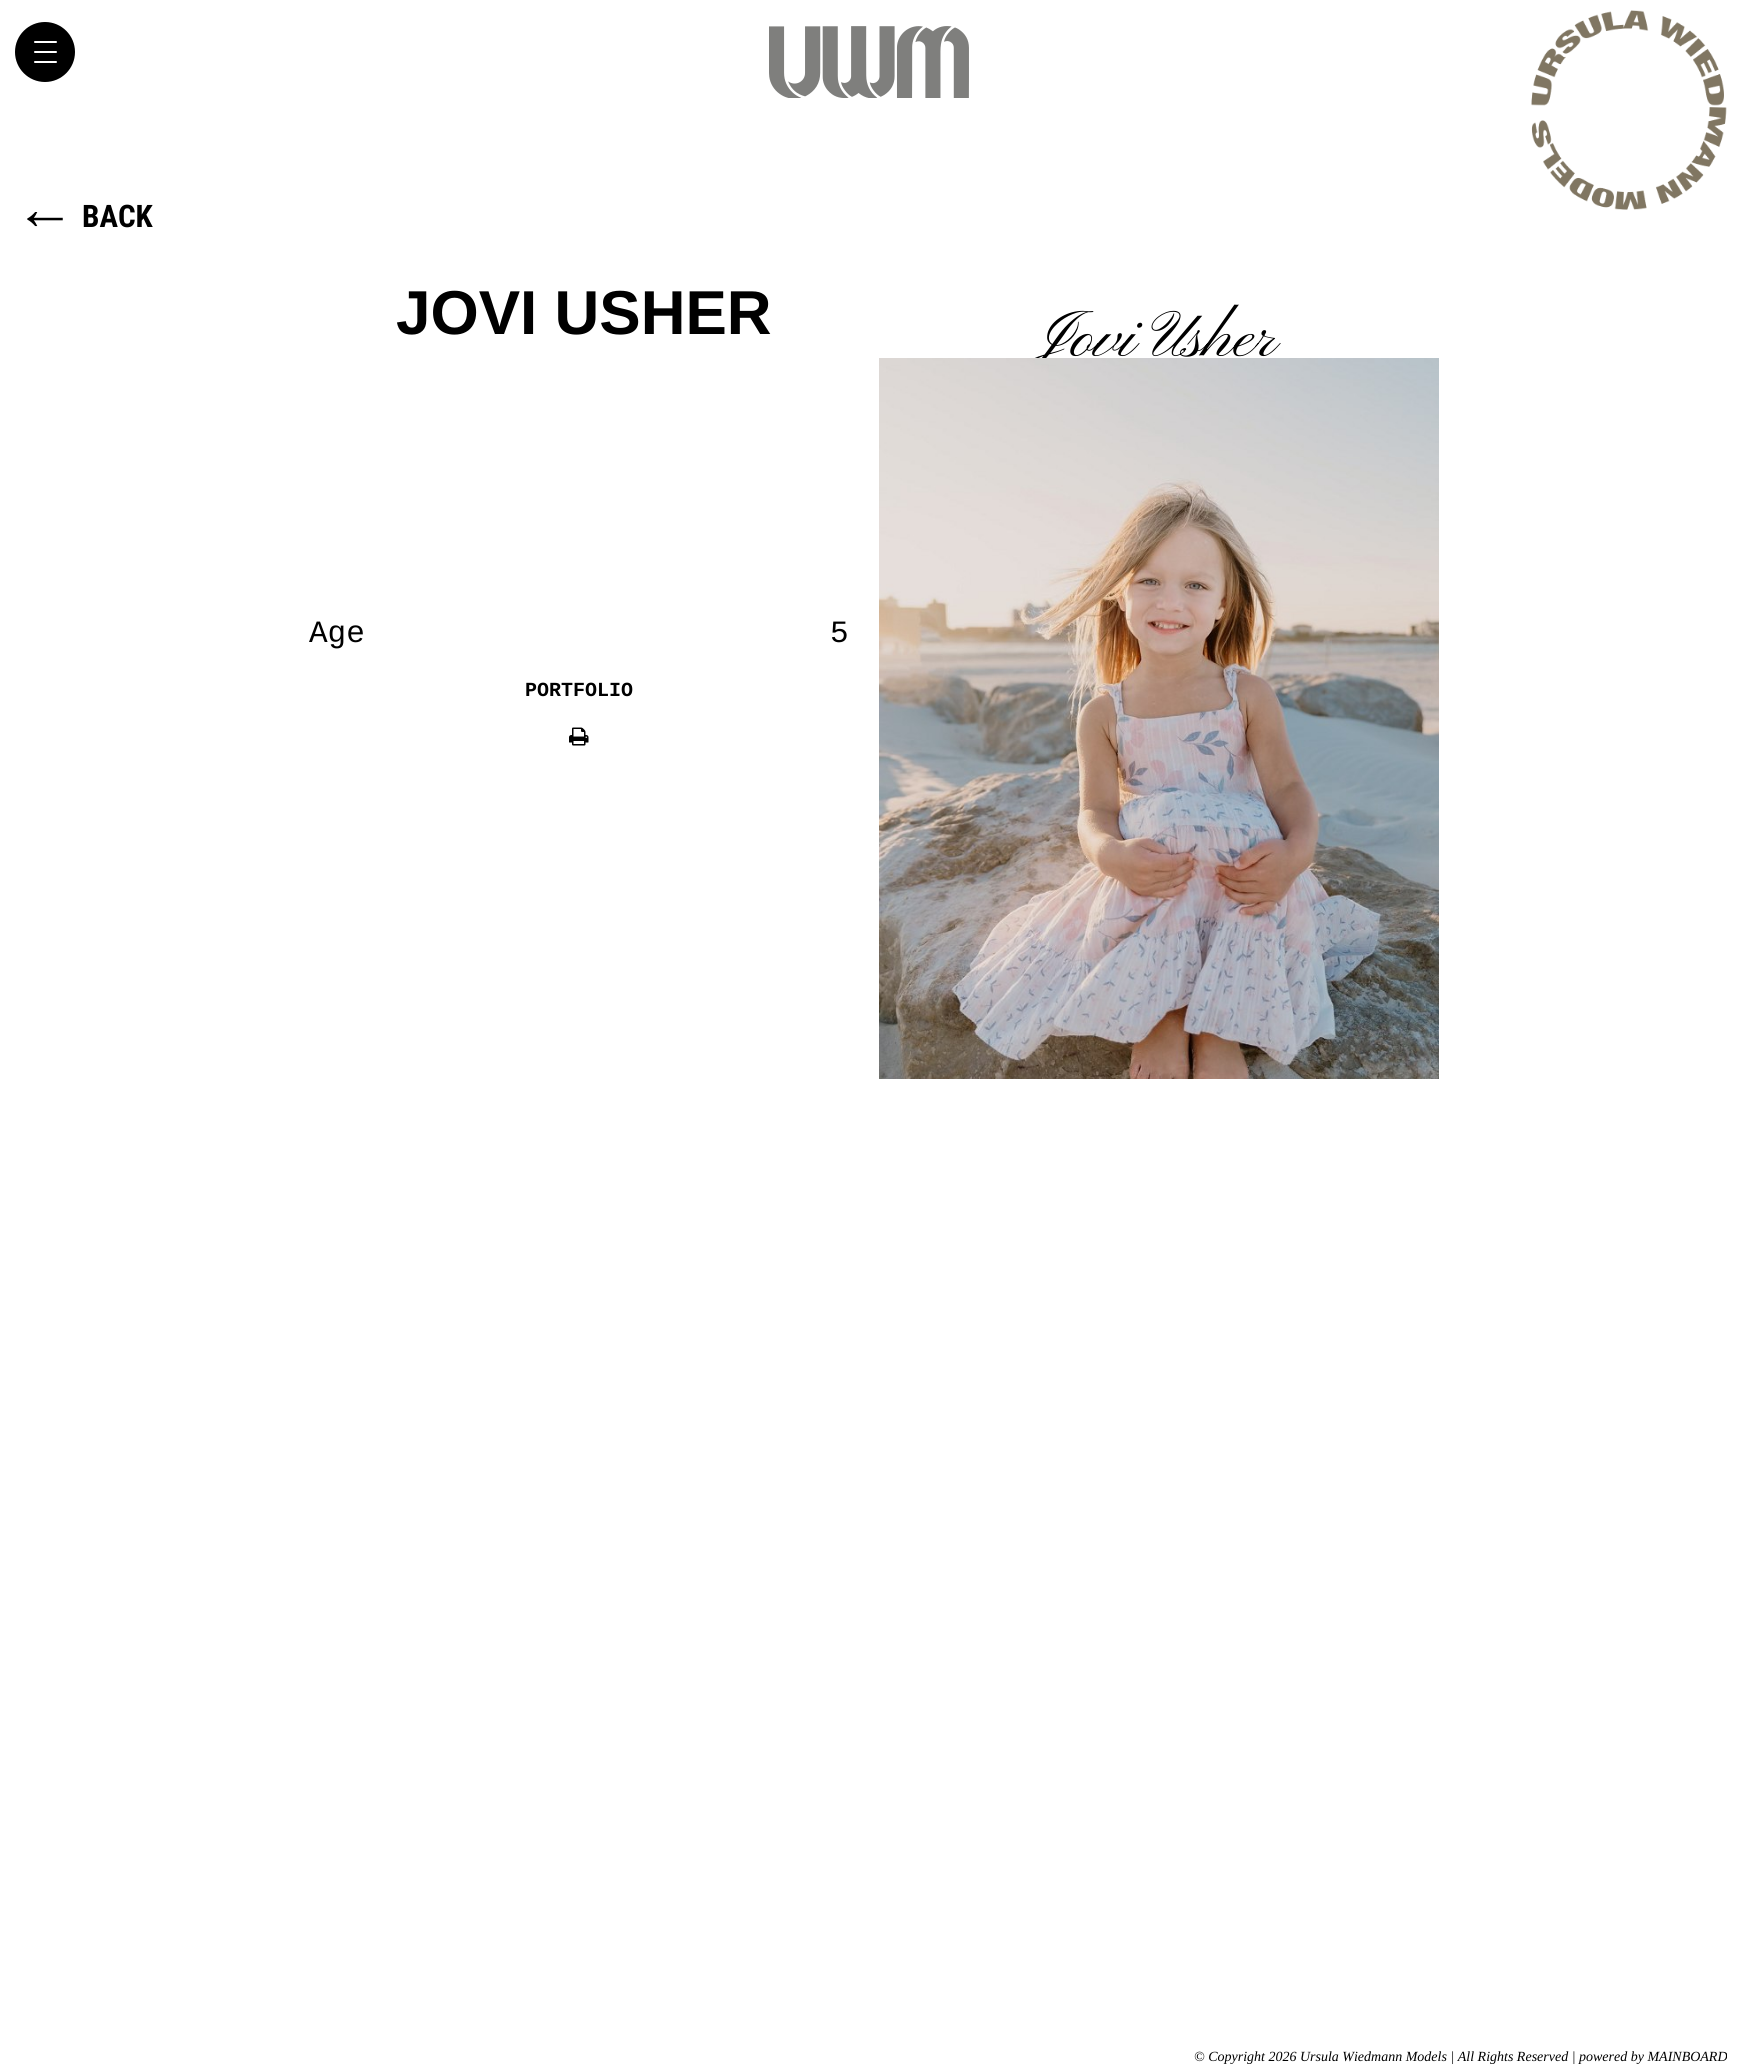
import math
import cairo

surface = cairo.ImageSurface(cairo.FORMAT_RGB24, 1738, 2072)
c = cairo.Context(surface)
options = cairo.FontOptions()
options.set_hint_metrics(cairo.HINT_METRICS_OFF)
options.set_hint_style(cairo.HINT_STYLE_NONE)
c.set_font_options(options)
c.set_miter_limit(4)
def C(code):
 c.set_source_rgb(*(v / 255 for v in bytes.fromhex(code[-6:])))
def F(family, size, italic, bold):
 c.select_font_face(family, cairo.FONT_SLANT_ITALIC if italic else cairo.FONT_SLANT_NORMAL, cairo.FONT_WEIGHT_BOLD if bold else cairo.FONT_WEIGHT_NORMAL)
 c.set_font_size(size)
def T(x, y, s):
 c.move_to(x, y)
 c.show_text(s)
def Q(x, y, w, h, r):
 c.new_sub_path()
 for i, (u, v) in enumerate([(x + w - r, y + h - r), (x + r, y + h - r), (x + r, y + r), (x + w - r, y + r)]):
  c.arc(u, v, r, i * math.pi / 2, (i + 1) * math.pi / 2)
 c.close_path()
def I(path, x, y, w, h):
 c.save()
 c.set_source_surface(cairo.ImageSurface.create_from_png(path), x, y)
 c.rectangle(x, y, w, h)
 c.fill()
 c.restore()
C('ffffff')
c.paint()
C('000000')
c.arc(45,52,30,0,2 * math.pi)
c.fill()
C('ffffff')
Q(34,41,23,2,1)
c.fill()
Q(34,51,23,2,1)
c.fill()
Q(34,61,23,2,1)
c.fill()
I('1.png',769,26,200,72)
I('2.png',1531,10,196,200)
F('Liberation Serif',60,0,1)
C('000000')
T(15,229,'←')
F('Roboto Condensed',31,0,1)
T(82,227,'BACK')
F('Liberation Sans',62,0,1)
T(396,334,'JOVI USHER')
F('Pinyon Script',66,0,0)
T(1031,356,'Jovi Usher')
F('Liberation Mono',31,0,0)
T(309,642,'Age')
T(830,642,'5')
F('Liberation Mono',20,0,1)
T(525,696,'PORTFOLIO')
I('3.png',569,727,20,19)
I('4.png',879,358,560,721)
F('Liberation Serif',14,1,0)
T(1194,2061,'© Copyright 2026 Ursula Wiedmann Models | All Rights Reserved | powered by MAINBOARD')
surface.write_to_png('o.png')
